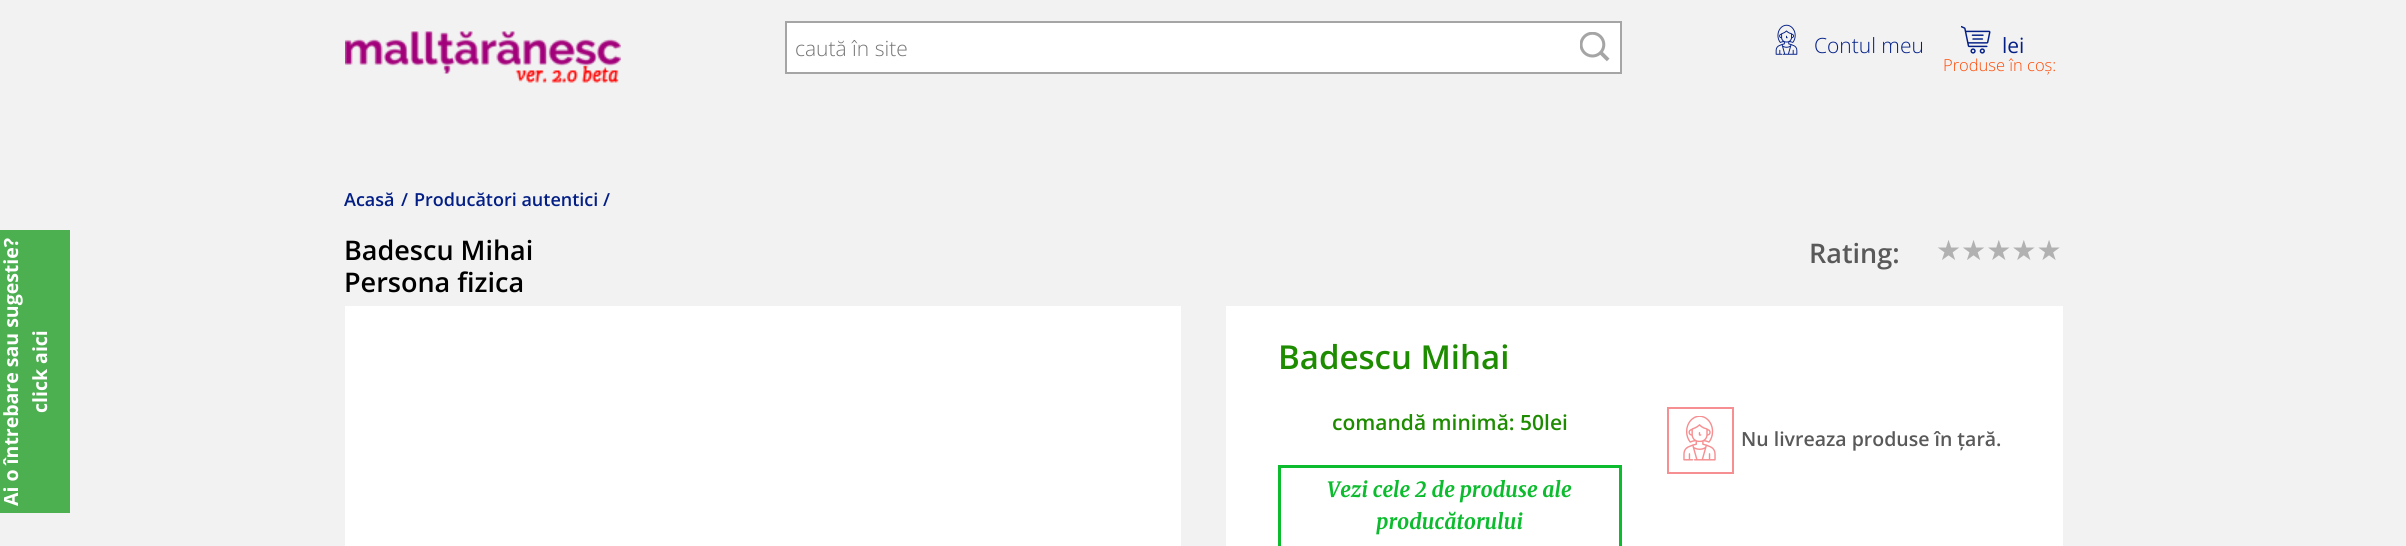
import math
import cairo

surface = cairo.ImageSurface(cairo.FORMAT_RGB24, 2406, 546)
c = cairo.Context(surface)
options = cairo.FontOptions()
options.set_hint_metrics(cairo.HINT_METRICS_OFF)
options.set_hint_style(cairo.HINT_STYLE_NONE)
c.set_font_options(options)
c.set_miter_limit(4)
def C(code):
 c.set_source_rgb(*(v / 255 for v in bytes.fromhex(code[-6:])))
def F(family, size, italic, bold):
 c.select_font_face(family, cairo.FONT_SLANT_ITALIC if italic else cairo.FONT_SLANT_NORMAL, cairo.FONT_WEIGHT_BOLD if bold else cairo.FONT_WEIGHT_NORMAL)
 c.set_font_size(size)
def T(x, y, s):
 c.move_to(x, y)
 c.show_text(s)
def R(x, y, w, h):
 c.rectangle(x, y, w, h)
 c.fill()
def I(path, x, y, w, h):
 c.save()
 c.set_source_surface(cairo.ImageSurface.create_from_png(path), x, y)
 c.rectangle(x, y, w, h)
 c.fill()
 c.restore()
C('f2f2f2')
c.paint()
I('1.png',345,31,276,52)
C('ffffff')
c.rectangle(786,22,835,51)
c.fill_preserve()
C('a5a5a5')
c.stroke()
F('Open Sans Light',21,0,0)
C('757575')
T(795,56,'caută în site')
I('2.png',1580,32,30,30)
I('3.png',1775,24,23,31)
C('031f86')
T(1814,53,'Contul meu')
I('4.png',1961,25,30,29)
F('Open Sans',21,0,0)
T(2002,53,'lei')
F('Open Sans Light',16.5,0,0)
C('ff4700')
T(1943,71,'Produse în coș:')
C('4caf50')
R(0,230,70,283)
F('Open Sans',19.5,0,1)
C('ffffff')
c.save()
c.translate(18,506)
c.rotate(-90 * math.pi / 180)
T(0,0,'Ai o întrebare sau sugestie?')
c.restore()
c.save()
c.translate(47,413)
c.rotate(-90 * math.pi / 180)
T(0,0,'click aici')
c.restore()
F('Open Sans SemiBold',18,0,0)
C('031f86')
T(344,206,'Acasă')
T(401,206,'/')
T(414,206,'Producători autentici /')
F('Open Sans SemiBold',27,0,0)
C('000000')
T(344,260,'Badescu Mihai')
T(344,292,'Persona fizica')
C('595959')
T(1809,263,'Rating:')
F('DejaVu Sans',28,0,0)
C('b1b1b1')
T(1936,260,'★★★★★')
C('ffffff')
R(345,306,836,240)
R(1226,306,837,240)
F('Open Sans SemiBold',33,0,0)
C('1e8c00')
T(1278,369,'Badescu Mihai')
F('Open Sans SemiBold',21,0,0)
T(1332,430,'comandă minimă: 50lei')
c.rectangle(1279.5,466.5,341,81)
C('0dbb2e')
c.set_line_width(3)
c.stroke()
F('Merriweather',21,1,1)
T(1327,497,'Vezi cele 2 de produse ale')
T(1376,529,'producătorului')
c.rectangle(1668,408,65,65)
C('f68f91')
c.set_line_width(2)
c.stroke()
I('5.png',1683,416,33,45)
F('Open Sans SemiBold',19.5,0,0)
C('595959')
T(1741,446,'Nu livreaza produse în țară.')
surface.write_to_png('o.png')
